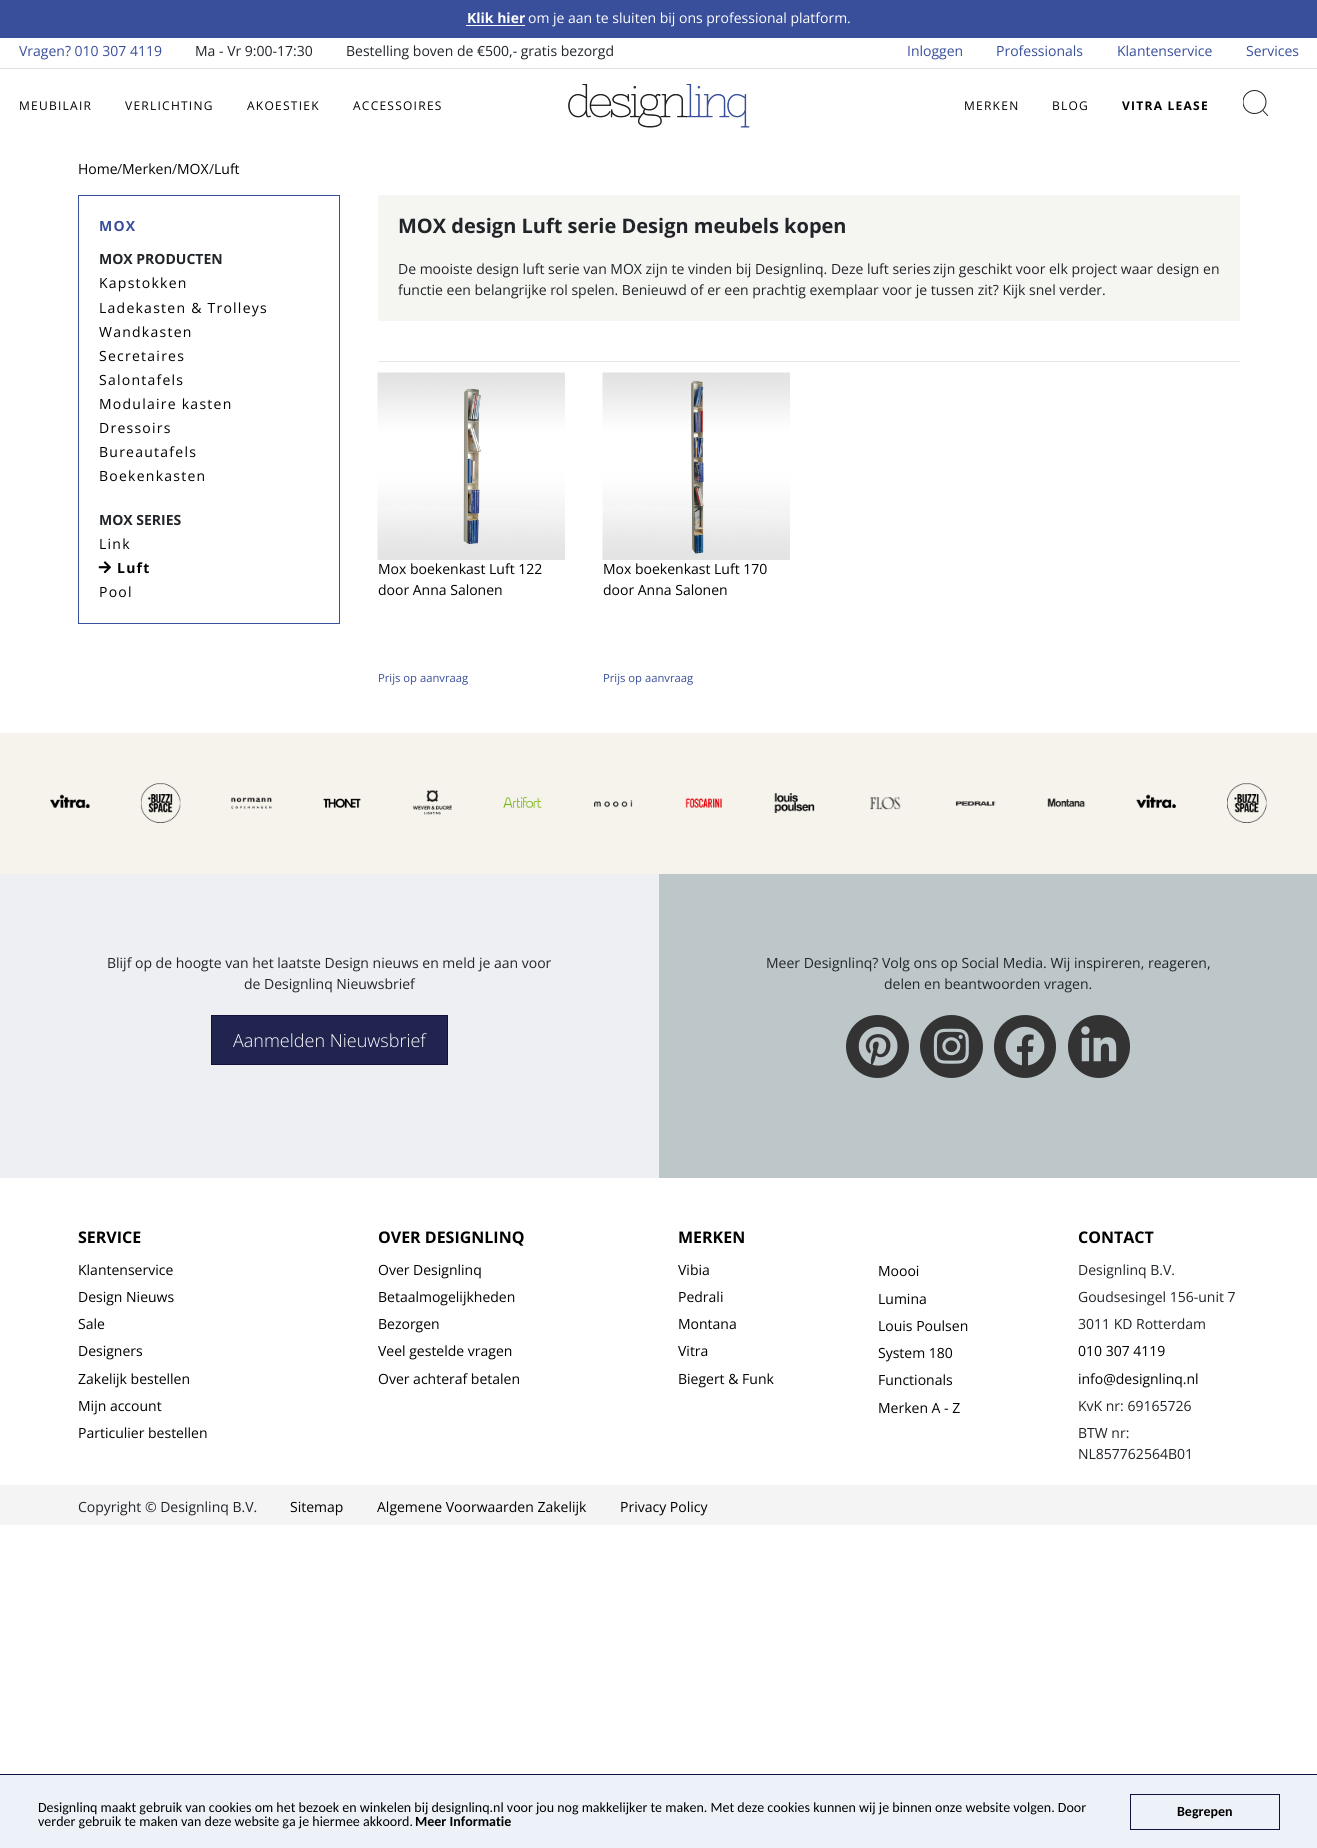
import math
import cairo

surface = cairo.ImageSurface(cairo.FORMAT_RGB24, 1317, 1848)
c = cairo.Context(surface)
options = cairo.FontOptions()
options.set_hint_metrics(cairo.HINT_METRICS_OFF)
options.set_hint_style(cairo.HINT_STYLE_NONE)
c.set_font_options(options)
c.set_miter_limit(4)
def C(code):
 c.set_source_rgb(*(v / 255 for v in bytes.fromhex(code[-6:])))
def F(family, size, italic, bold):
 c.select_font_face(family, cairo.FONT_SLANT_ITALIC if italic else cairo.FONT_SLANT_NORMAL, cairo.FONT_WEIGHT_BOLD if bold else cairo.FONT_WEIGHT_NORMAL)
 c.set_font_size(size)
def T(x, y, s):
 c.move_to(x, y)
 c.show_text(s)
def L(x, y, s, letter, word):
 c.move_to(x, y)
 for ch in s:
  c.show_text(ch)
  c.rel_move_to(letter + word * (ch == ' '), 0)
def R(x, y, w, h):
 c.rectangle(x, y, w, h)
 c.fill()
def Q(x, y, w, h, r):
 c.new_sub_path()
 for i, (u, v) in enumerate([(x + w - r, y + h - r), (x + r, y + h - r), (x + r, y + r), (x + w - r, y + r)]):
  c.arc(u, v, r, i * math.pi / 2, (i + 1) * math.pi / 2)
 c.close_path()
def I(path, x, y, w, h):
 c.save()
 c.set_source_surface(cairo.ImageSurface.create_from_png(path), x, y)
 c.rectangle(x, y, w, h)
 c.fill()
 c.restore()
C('ffffff')
c.paint()
C('394f9b')
R(0,0,1317,38)
F('Open Sans',14,0,1)
C('ffffff')
T(467,23,'Klik hier')
R(466,25,59,1)
F('Open Sans',14,0,0)
T(528,23,'om je aan te sluiten bij ons professional platform.')
C('e1e1e1')
R(0,68,1317,1)
C('394f9b')
T(19,56,'Vragen? 010 307 4119')
C('212529')
T(195,56,'Ma - Vr 9:00-17:30')
T(346,56,'Bestelling boven de €500,- gratis bezorgd')
C('394f9b')
T(907,56,'Inloggen')
T(996,56,'Professionals')
T(1117,56,'Klantenservice')
T(1246,56,'Services')
F('Open Sans',12,0,0)
C('000000')
L(19,110,'MEUBILAIR',1.25,0)
L(125,110,'VERLICHTING',1.25,0)
L(247,110,'AKOESTIEK',1.25,0)
L(353,110,'ACCESSOIRES',1.25,0)
I('1.png',568,84,182,44)
L(964,110,'MERKEN',1.25,0)
L(1052,110,'BLOG',1.25,0)
F('Open Sans',12,0,1)
L(1122,110,'VITRA LEASE',1.25,0)
I('2.png',1243,90,26,26)
F('Open Sans',14,0,0)
T(78,174,'Home')
C('212529')
T(117,174,'/')
C('000000')
T(122,174,'Merken')
C('212529')
T(172,174,'/')
C('000000')
T(177,174,'MOX')
C('212529')
T(209,174,'/')
C('000000')
T(214,174,'Luft')
c.rectangle(78.5,195.5,261,428)
C('394f9b')
c.set_line_width(1)
c.stroke()
F('Open Sans',14,0,1)
L(99,231,'MOX',1.25,0)
C('212529')
T(99,264,'MOX PRODUCTEN')
F('Open Sans',14,0,0)
C('000000')
L(99,288,'Kapstokken',1.25,0)
L(99,313,'Ladekasten & Trolleys',1.25,0)
L(99,337,'Wandkasten',1.25,0)
L(99,361,'Secretaires',1.25,0)
L(99,385,'Salontafels',1.25,0)
L(99,409,'Modulaire kasten',1.25,0)
L(99,433,'Dressoirs',1.25,0)
L(99,457,'Bureautafels',1.25,0)
L(99,481,'Boekenkasten',1.25,0)
F('Open Sans',14,0,1)
C('212529')
T(99,525,'MOX SERIES')
F('Open Sans',14,0,0)
C('000000')
L(99,549,'Link',1.25,0)
I('3.png',98,561,13,13)
F('Open Sans',14,0,1)
L(117,573,'Luft',1.25,0)
F('Open Sans',14,0,0)
L(99,597,'Pool',1.25,0)
C('f5f5f2')
R(378,195,862,126)
F('Open Sans',20,0,1)
C('212529')
T(398,233,'MOX design Luft serie Design meubels kopen')
F('Open Sans',14,0,0)
T(398,274,'De mooiste design luft serie van MOX zijn te vinden bij Designlinq. Deze luft series')
T(933,274,'zijn geschikt voor elk project waar design en')
T(398,295,'functie een belangrijke rol spelen. Benieuwd of er een prachtig exemplaar voor je tussen zit? Kijk snel verder.')
C('e6e6e6')
R(378,361,862,1)
I('4.png',377,372,188,188)
C('000000')
T(378,574,'Mox boekenkast Luft 122')
T(378,595,'door Anna Salonen')
F('Open Sans',11.25,0,0)
C('394f9b')
T(378,682,'Prijs op aanvraag')
I('5.png',602,372,188,188)
F('Open Sans',14,0,0)
C('000000')
T(603,574,'Mox boekenkast Luft 170')
T(603,595,'door Anna Salonen')
F('Open Sans',11.25,0,0)
C('394f9b')
T(603,682,'Prijs op aanvraag')
C('f6f3ed')
R(0,733,1317,141)
I('6.png',50,794,40,14)
I('7.png',140,783,41,40)
I('8.png',230,797,42,12)
I('9.png',323,798,38,10)
I('10.png',412,790,40,25)
I('11.png',503,796,39,12)
I('12.png',594,799,39,9)
I('13.png',685,798,37,10)
I('14.png',774,793,41,20)
I('15.png',869,797,32,13)
I('16.png',955,801,41,5)
I('17.png',1047,798,38,10)
I('18.png',1136,794,40,14)
I('19.png',1227,783,40,40)
C('edeff3')
R(0,874,659,304)
F('Open Sans',14,0,0)
C('212529')
T(107,968,'Blijf op de hoogte van het laatste Design nieuws en meld je aan voor')
T(244,989,'de Designlinq Nieuwsbrief')
C('20244f')
c.rectangle(211.5,1015.5,236,49)
c.fill_preserve()
C('11113f')
c.stroke()
F('Open Sans Light',18,0,0)
C('ffffff')
T(233,1047,'Aanmelden Nieuwsbrief')
C('bdc7c9')
R(659,874,658,304)
F('Open Sans',14,0,0)
C('212529')
T(766,968,'Meer Designlinq? Volg ons op Social Media. Wij inspireren, reageren,')
T(884,989,'delen en beantwoorden vragen.')
C('333333')
c.new_path()
c.arc(877.5,1046.5,31.5,0,2 * math.pi)
c.fill()
I('20.png',858,1026,40,40)
c.arc(951.5,1046.5,31.5,0,2 * math.pi)
c.fill()
I('21.png',933,1028,36,36)
Q(994,1015,62,63,31)
c.fill()
I('22.png',1005,1026,40,40)
Q(1068,1015,62,63,31)
c.fill()
I('23.png',1081,1026,36,36)
F('Open Sans',16,0,1)
C('000000')
T(78,1243,'SERVICE')
F('Open Sans',14,0,0)
T(78,1275,'Klantenservice')
T(78,1302,'Design Nieuws')
T(78,1329,'Sale')
T(78,1356,'Designers')
T(78,1384,'Zakelijk bestellen')
T(78,1411,'Mijn account')
T(78,1438,'Particulier bestellen')
F('Open Sans',16,0,1)
T(378,1243,'OVER DESIGNLINQ')
F('Open Sans',14,0,0)
T(378,1275,'Over Designlinq')
T(378,1302,'Betaalmogelijkheden')
T(378,1329,'Bezorgen')
T(378,1356,'Veel gestelde vragen')
T(378,1384,'Over achteraf betalen')
F('Open Sans',16,0,1)
T(678,1243,'MERKEN')
F('Open Sans',14,0,0)
T(678,1275,'Vibia')
T(678,1302,'Pedrali')
T(678,1329,'Montana')
T(678,1356,'Vitra')
T(678,1384,'Biegert & Funk')
T(878,1276,'Moooi')
T(878,1304,'Lumina')
T(878,1331,'Louis Poulsen')
T(878,1358,'System 180')
T(878,1385,'Functionals')
T(878,1413,'Merken A - Z')
F('Open Sans',16,0,1)
T(1078,1243,'CONTACT')
F('Open Sans',14,0,0)
C('212529')
T(1078,1275,'Designlinq B.V.')
T(1078,1302,'Goudsesingel 156-unit 7')
T(1078,1329,'3011 KD Rotterdam')
C('000000')
T(1078,1356,'010 307 4119')
T(1078,1384,'info@designlinq.nl')
C('212529')
T(1078,1411,'KvK nr: 69165726')
T(1078,1438,'BTW nr:')
T(1078,1459,'NL857762564B01')
C('f4f4f4')
R(0,1485,1317,40)
C('212529')
T(78,1512,'Copyright © Designlinq B.V.')
C('000000')
T(290,1512,'Sitemap')
T(377,1512,'Algemene Voorwaarden Zakelijk')
T(620,1512,'Privacy Policy')
C('edf2f9')
R(0,1775,1317,73)
C('11113f')
R(0,1774,1317,1)
F('Carlito',14,0,0)
C('000000')
T(38,1812,'Designlinq maakt gebruik van cookies om het bezoek en winkelen bij designlinq.nl voor jou nog makkelijker te maken. Met deze cookies kunnen wij je binnen onze website volgen. Door')
T(38,1826,'verder gebruik te maken van deze website ga je hiermee akkoord.')
F('Carlito',14,0,1)
T(415,1826,'Meer Informatie')
c.rectangle(1130.5,1794.5,149,35)
C('11113f')
c.stroke()
C('000000')
T(1177,1816,'Begrepen')
surface.write_to_png('o.png')
